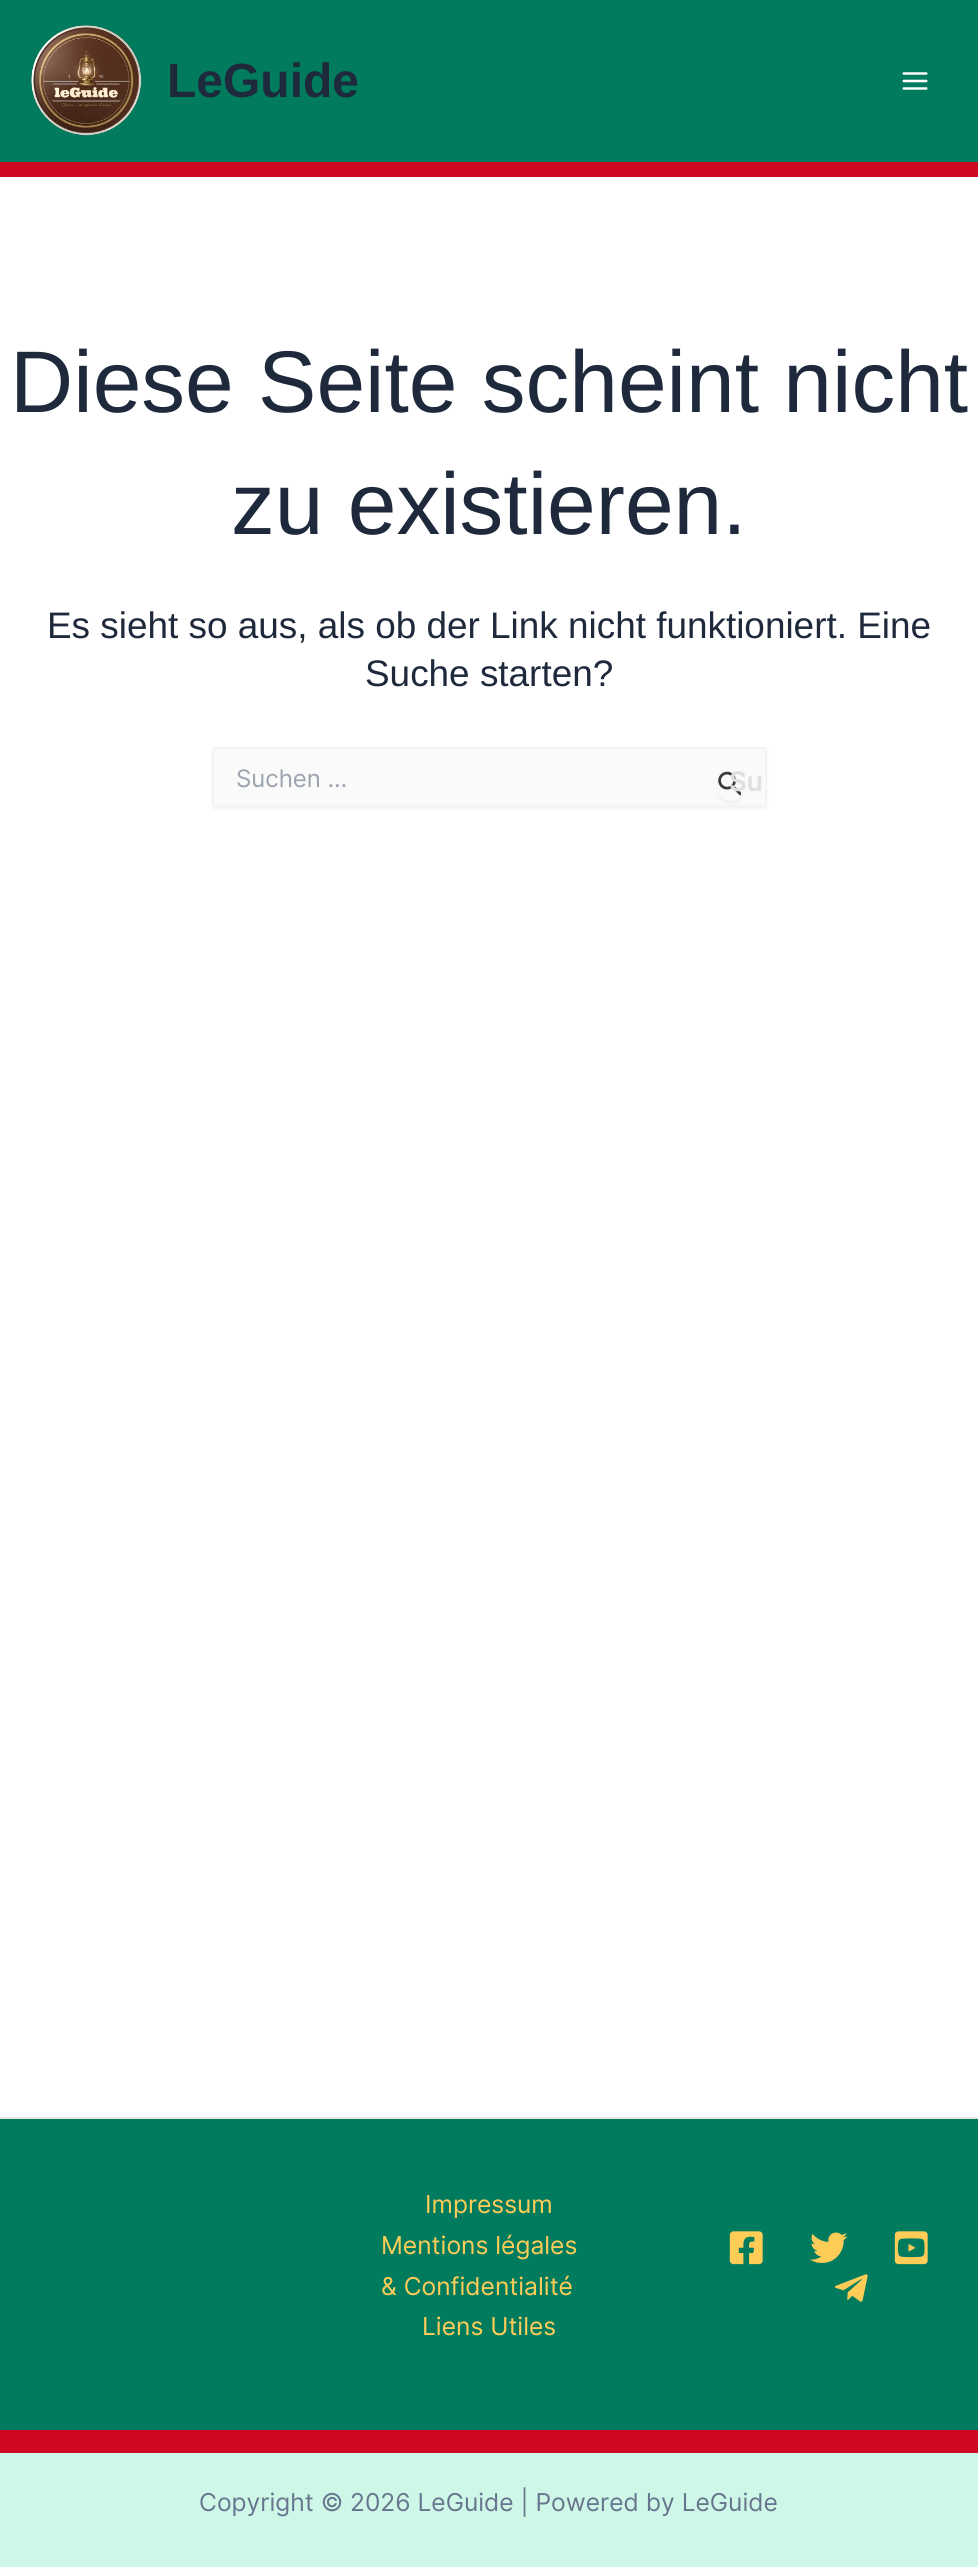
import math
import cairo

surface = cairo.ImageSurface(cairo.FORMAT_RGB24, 978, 2567)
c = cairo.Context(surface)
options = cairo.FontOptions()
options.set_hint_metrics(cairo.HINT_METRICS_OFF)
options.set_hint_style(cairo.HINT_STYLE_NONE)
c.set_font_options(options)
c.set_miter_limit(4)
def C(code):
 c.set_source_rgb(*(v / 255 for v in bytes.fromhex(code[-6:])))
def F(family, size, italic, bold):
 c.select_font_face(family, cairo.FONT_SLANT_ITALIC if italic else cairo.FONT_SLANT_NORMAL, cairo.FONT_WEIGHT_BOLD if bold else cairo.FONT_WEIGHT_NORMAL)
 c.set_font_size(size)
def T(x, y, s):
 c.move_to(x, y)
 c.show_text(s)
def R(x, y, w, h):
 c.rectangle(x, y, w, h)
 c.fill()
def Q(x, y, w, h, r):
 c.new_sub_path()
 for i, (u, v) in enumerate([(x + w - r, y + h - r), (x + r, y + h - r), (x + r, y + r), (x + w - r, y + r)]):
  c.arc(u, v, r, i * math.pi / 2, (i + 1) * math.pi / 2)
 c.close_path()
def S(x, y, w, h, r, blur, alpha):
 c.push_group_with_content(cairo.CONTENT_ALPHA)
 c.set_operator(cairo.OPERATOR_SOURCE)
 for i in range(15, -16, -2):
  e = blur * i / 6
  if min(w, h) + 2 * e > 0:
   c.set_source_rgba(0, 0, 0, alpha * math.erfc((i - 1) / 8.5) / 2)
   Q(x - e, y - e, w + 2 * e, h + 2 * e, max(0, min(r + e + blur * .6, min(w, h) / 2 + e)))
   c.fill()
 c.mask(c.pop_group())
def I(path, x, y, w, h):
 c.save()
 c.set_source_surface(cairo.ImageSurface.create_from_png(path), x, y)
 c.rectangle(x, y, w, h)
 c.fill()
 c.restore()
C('ffffff')
c.paint()
C('007b5e')
R(0,0,978,162)
C('cf0821')
R(0,162,978,15)
I('1.png',31,25,111,111)
F('Liberation Sans',48,0,1)
C('1e293b')
T(167,97,'LeGuide')
I('2.png',902,72,26,18)
F('Liberation Sans',87.5,0,0)
T(10,412,'Diese Seite scheint nicht')
T(231,534,'zu existieren.')
F('Liberation Sans',36.9,0,0)
T(47,638,'Es sieht so aus, als ob der Link nicht funktioniert. Eine')
T(365,686,'Suche starten?')
C('000000')
S(212,749,555,60,3,1.5,.05)
C('fafafa')
Q(213,748,553,58,2)
c.fill_preserve()
C('f2f5f7')
c.stroke()
F('Inter',24,0,0)
C('9ca3af')
T(236,787,'Suchen …')
c.save()
c.set_fill_rule(cairo.FILL_RULE_EVEN_ODD)
c.new_path()
c.move_to(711,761)
c.line_to(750,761)
c.line_to(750,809)
c.line_to(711,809)
c.close_path()
c.move_to(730.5,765)
c.curve_to(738,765,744,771,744,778.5)
c.line_to(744,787.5)
c.curve_to(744,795,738,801,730.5,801)
c.curve_to(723,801,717,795,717,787.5)
c.line_to(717,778.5)
c.curve_to(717,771,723,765,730.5,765)
c.close_path()
c.clip()
C('000000')
S(717,767,27,36,13.5,1.5,.05)
c.restore()
I('3.png',718,771,23,25)
F('Inter SemiBold',27,0,0)
C('dfdfdf')
T(729,791,'Su')
C('007b5e')
R(0,2119,978,311)
C('e6e6e6')
R(0,2117,978,2)
F('Inter',24.6,0,0)
C('ffcd57')
T(425,2213,'Impressum')
T(381,2254,'Mentions légales')
T(381,2295,'& Confidentialité')
T(422,2335,'Liens Utiles')
I('4.png',729,2231,34,34)
I('5.png',810,2232,38,31)
I('6.png',894,2231,34,34)
I('7.png',834,2274,34,28)
C('cef7e7')
R(0,2453,978,114)
C('cf0821')
R(0,2430,978,23)
C('67768e')
T(199,2511,'Copyright © 2026 LeGuide | Powered by LeGuide')
surface.write_to_png('o.png')
